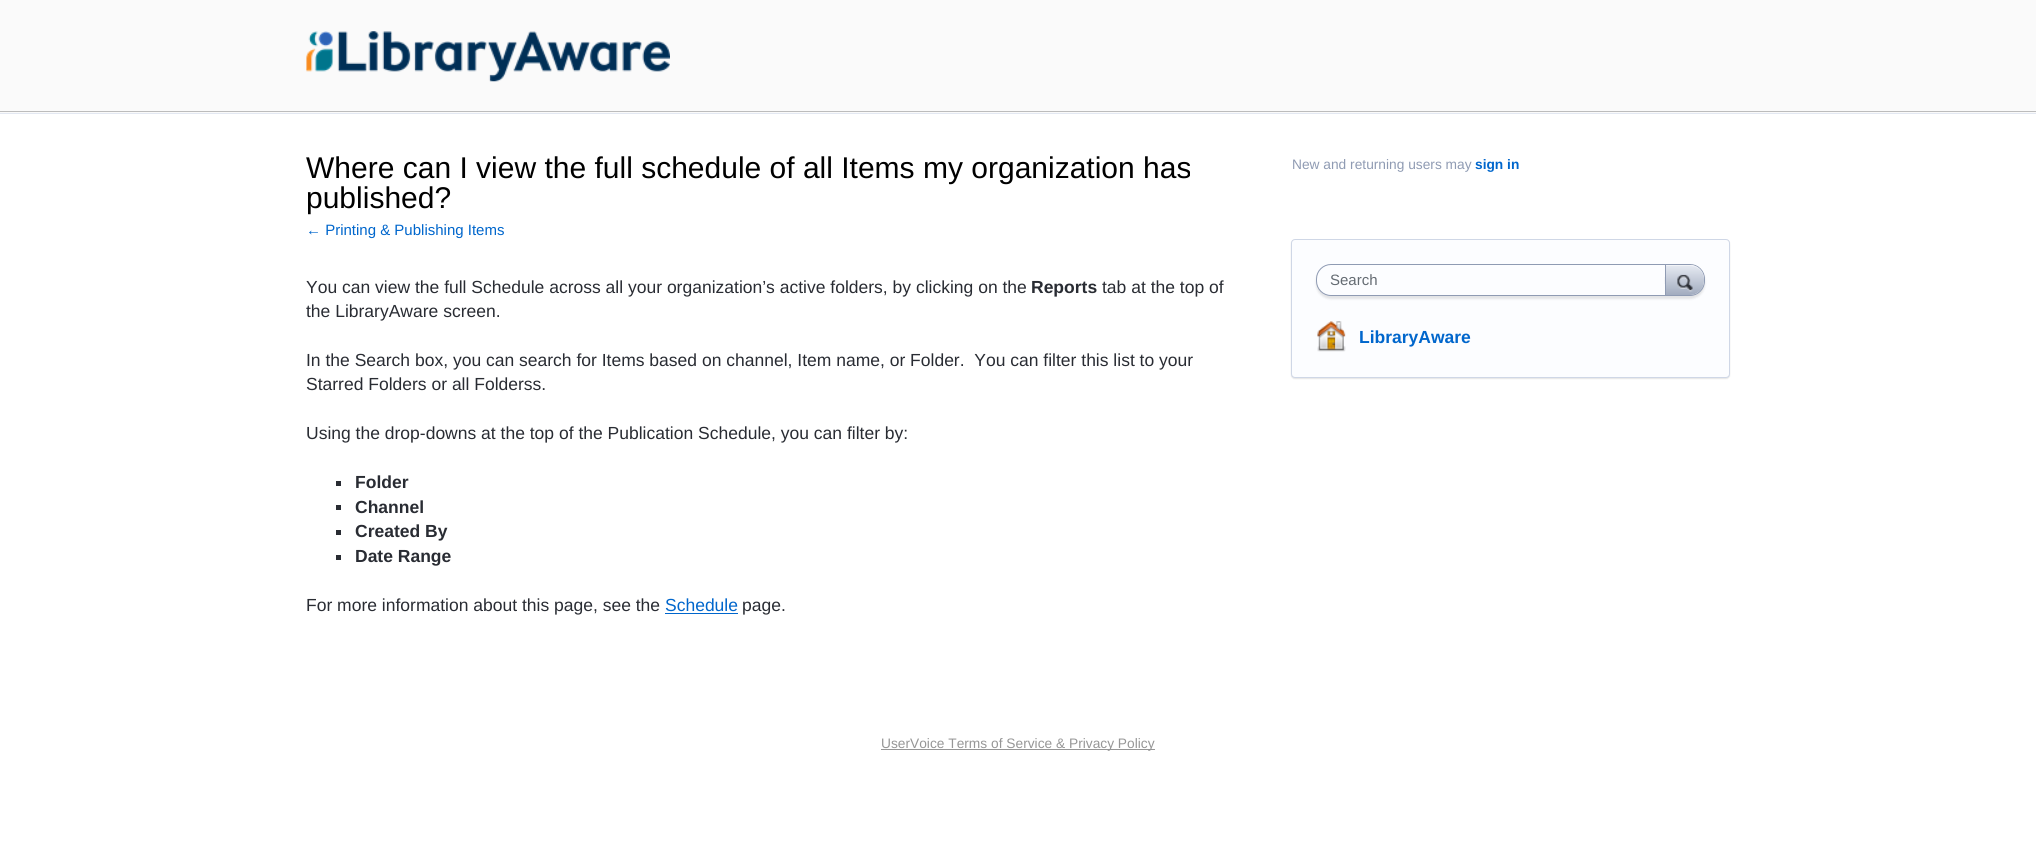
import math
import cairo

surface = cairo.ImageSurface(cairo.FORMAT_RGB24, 2036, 859)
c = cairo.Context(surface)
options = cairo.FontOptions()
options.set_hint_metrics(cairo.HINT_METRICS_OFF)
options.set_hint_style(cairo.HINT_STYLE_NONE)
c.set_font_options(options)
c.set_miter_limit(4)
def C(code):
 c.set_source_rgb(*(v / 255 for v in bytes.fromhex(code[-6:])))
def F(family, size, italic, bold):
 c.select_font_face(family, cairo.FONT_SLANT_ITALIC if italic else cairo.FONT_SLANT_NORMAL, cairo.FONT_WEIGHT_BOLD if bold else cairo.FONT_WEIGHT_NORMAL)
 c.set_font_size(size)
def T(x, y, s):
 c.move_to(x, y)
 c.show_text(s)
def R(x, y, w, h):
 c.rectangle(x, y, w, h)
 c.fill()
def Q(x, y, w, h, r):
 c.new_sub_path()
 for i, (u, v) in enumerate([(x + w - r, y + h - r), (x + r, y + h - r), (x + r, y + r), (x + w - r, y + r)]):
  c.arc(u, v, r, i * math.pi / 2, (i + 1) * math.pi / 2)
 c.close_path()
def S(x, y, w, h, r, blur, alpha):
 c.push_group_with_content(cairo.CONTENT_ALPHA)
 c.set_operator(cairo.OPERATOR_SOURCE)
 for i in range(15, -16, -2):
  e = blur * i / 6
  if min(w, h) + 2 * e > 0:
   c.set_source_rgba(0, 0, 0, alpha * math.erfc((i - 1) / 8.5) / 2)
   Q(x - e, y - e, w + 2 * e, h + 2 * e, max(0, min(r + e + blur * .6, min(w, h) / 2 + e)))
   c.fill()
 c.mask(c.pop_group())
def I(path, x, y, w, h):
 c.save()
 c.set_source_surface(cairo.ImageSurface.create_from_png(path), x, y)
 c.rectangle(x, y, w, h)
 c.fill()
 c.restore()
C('ffffff')
c.paint()
C('fafafa')
R(0,0,2036,113)
C('bcbcbc')
R(0,111,2036,1)
I('1.png',306,31,364,51)
C('e3e8f2')
R(0,113,2036,1)
F('Liberation Sans',30,0,0)
C('000000')
T(306,178,'Where can I view the full schedule of all Items my organization has')
T(306,208,'published?')
F('Liberation Sans',15,0,0)
C('0066cc')
T(306,235,'← Printing & Publishing Items')
F('Liberation Sans',17.5,0,0)
C('292c33')
T(306,293,'You can view the full Schedule across all your organization’s active folders, by clicking on the')
F('Liberation Sans',17.5,0,1)
T(1031,293,'Reports')
F('Liberation Sans',17.5,0,0)
T(1102,293,'tab at the top of')
T(306,317,'the LibraryAware screen.')
T(306,366,'In the Search box, you can search for Items based on channel, Item name, or Folder.  You can filter this list to your')
T(306,390,'Starred Folders or all Folderss.')
T(306,439,'Using the drop-downs at the top of the Publication Schedule, you can filter by:')
R(336,481,5,5)
F('Liberation Sans',17.5,0,1)
T(355,488,'Folder')
R(336,505,5,5)
T(355,513,'Channel')
R(336,530,5,5)
T(355,537,'Created By')
R(336,555,5,5)
T(355,562,'Date Range')
F('Liberation Sans',17.5,0,0)
T(306,611,'For more information about this page, see the')
C('0066cc')
T(665,611,'Schedule')
C('292c33')
T(742,611,'page.')
C('0066cc')
R(665,613,73,1)
F('Liberation Sans',13.75,0,0)
C('8f9bb3')
T(1292,169,'New and returning users may')
F('Liberation Sans',13.75,0,1)
C('0066cc')
T(1475,169,'sign in')
C('000000')
S(1291,240,439,139,4,.5,.1)
C('fcfdff')
Q(1291.5,239.5,438,138,3.5)
c.fill_preserve()
C('cfd7e6')
c.set_line_width(1)
c.stroke()
C('000000')
S(1316,266,389,33,15,1,.1)
C('fcfdff')
Q(1316.5,264.5,388,31,14.5)
c.fill_preserve()
C('8f9bb3')
c.stroke()
F('Liberation Sans',15,0,0)
C('646b72')
T(1330,285,'Search')
c.save()
c.rectangle(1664,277,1,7)
c.clip()
C('000000')
S(1665,265,40,31,15,1,.1)
c.restore()
gradient = cairo.LinearGradient(1666,265,1666,295)
gradient.add_color_stop_rgba(0,0.902,0.918,0.949,1)
gradient.add_color_stop_rgba(1,0.635,0.675,0.749,1)
c.set_source(gradient)
c.new_path()
c.move_to(1666,265)
c.line_to(1690,265)
c.curve_to(1697.5,265,1704,271,1704,279)
c.line_to(1704,280)
c.curve_to(1704,288.5,1697.5,295,1690,295)
c.line_to(1666,295)
c.close_path()
c.fill()
c.set_source_rgba(1,1,1,0.5)
c.new_path()
c.move_to(1666,265)
c.line_to(1690,265)
c.curve_to(1696.5,265,1702.5,270,1703.5,276)
c.curve_to(1702,270,1696.5,266,1690,266)
c.line_to(1666,266)
c.close_path()
c.fill()
C('8f9bb3')
c.new_path()
c.move_to(1696,293.5)
c.line_to(1691.5,295)
c.curve_to(1698.5,294,1704,287.5,1704,280)
c.curve_to(1704,286,1701.5,291,1696,293.5)
c.close_path()
c.fill()
R(1665,265,1,30)
I('2.png',1677,274,16,18)
I('3.png',1317,321,29,31)
F('Liberation Sans',17.5,0,1)
C('0066cc')
T(1359,343,'LibraryAware')
C('969696')
R(881,749,274,1)
F('Liberation Sans',13.75,0,0)
T(881,748,'UserVoice Terms of Service & Privacy Policy')
surface.write_to_png('o.png')
